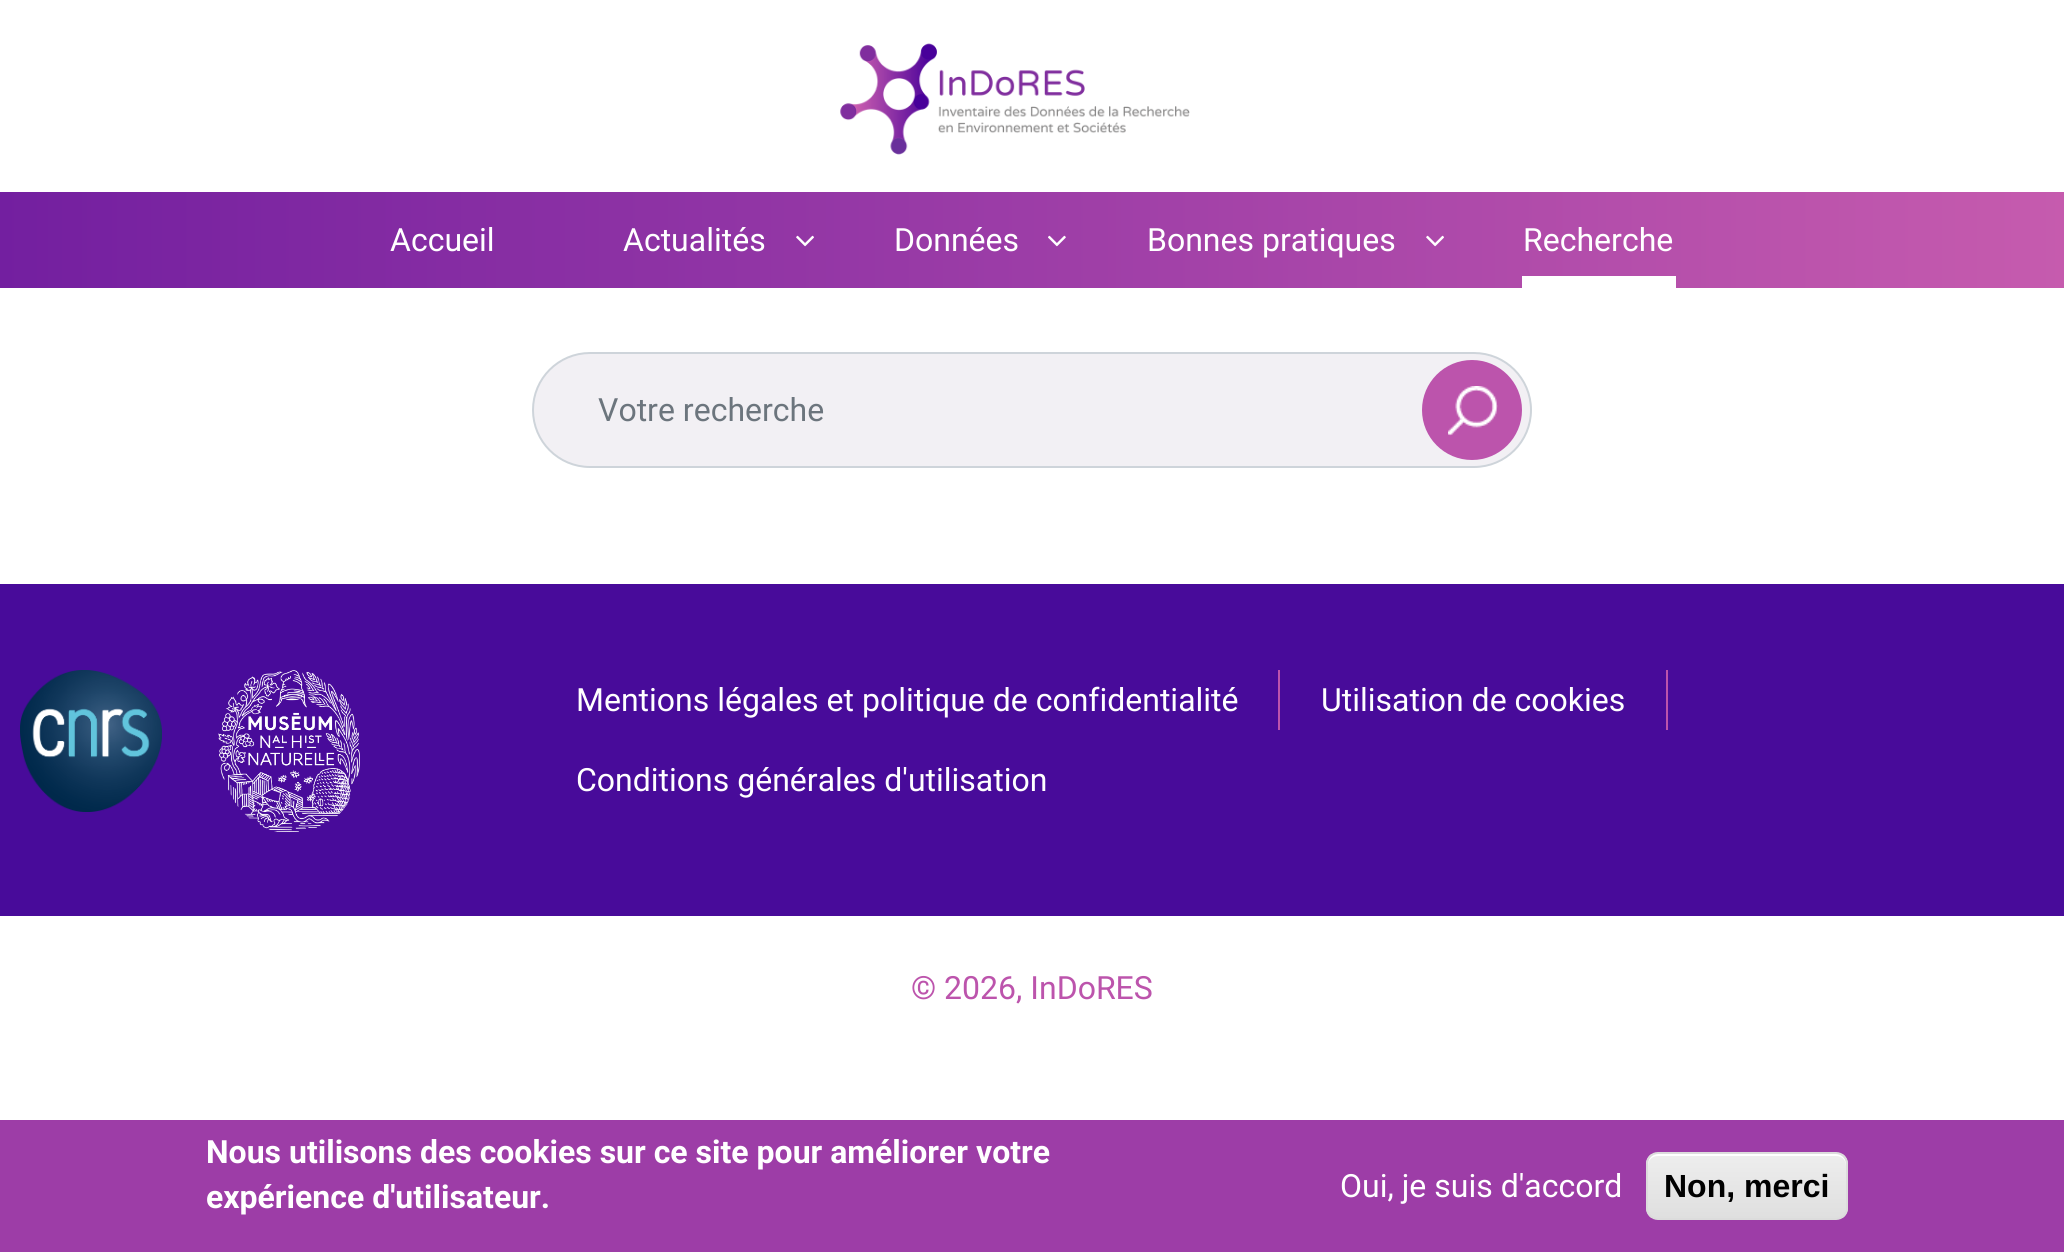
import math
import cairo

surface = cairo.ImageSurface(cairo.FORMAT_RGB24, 2064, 1252)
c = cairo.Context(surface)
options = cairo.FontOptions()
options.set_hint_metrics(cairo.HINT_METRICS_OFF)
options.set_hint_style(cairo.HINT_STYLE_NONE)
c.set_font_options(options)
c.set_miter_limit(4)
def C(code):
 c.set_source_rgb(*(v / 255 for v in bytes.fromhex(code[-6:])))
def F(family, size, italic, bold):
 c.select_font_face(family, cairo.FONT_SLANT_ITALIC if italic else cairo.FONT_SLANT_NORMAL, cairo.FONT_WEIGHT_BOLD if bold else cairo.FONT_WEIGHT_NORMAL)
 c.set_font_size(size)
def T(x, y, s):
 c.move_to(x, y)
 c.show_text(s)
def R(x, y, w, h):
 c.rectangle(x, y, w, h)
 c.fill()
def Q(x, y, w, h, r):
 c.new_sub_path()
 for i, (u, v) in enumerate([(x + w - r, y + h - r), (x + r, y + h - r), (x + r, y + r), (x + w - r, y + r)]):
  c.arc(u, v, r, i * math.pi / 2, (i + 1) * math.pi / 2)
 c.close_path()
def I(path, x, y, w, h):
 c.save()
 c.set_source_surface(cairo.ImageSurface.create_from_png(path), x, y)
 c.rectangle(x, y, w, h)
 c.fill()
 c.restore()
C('ffffff')
c.paint()
I('1.png',840,43,350,112)
gradient = cairo.LinearGradient(0,240,2064,240)
gradient.add_color_stop_rgba(0,0.451,0.122,0.627,1)
gradient.add_color_stop_rgba(1,0.776,0.357,0.682,1)
c.set_source(gradient)
R(0,192,2064,96)
F('Roboto',32,0,0)
C('ffffff')
T(390,251,'Accueil')
T(623,251,'Actualités')
I('2.png',796,235,18,12)
T(894,251,'Données')
I('3.png',1048,235,18,12)
T(1147,251,'Bonnes pratiques')
I('4.png',1426,235,18,12)
T(1523,251,'Recherche')
R(1522,276,154,12)
C('f2f0f4')
Q(533,353,998,114,57)
c.fill_preserve()
C('ced4da')
c.stroke()
C('6c757d')
T(598,421,'Votre recherche')
C('bc54ac')
c.new_path()
c.arc(1472,410,50,0,2 * math.pi)
c.fill()
I('5.png',1448,386,50,50)
C('480b9a')
R(0,584,2064,332)
I('6.png',20,670,142,142)
I('7.png',218,670,142,162)
C('ffffff')
T(576,711,'Mentions légales et politique de confidentialité')
C('bc54ac')
R(1278,670,2,60)
C('ffffff')
T(1321,711,'Utilisation de cookies')
C('bc54ac')
R(1666,670,2,60)
C('ffffff')
T(576,791,'Conditions générales d\'utilisation')
C('bc54ac')
T(911,999,'© 2026, InDoRES')
C('9d3da7')
R(0,1120,2064,132)
F('Roboto',32,0,1)
C('ffffff')
T(206,1163,'Nous utilisons des cookies sur ce site pour améliorer votre')
T(206,1208,'expérience d\'utilisateur.')
F('Roboto',32,0,0)
T(1340,1197,'Oui, je suis d\'accord')
c.save()
Q(1646,1152,202,68,12)
c.clip()
gradient = cairo.LinearGradient(1747,1154,1747,1218)
gradient.add_color_stop_rgba(.05,0.929,0.929,0.929,1)
gradient.add_color_stop_rgba(1,0.875,0.875,0.875,1)
c.set_source(gradient)
R(1646,1154,202,64)
c.restore()
c.new_path()
c.move_to(1658,1156)
c.line_to(1836,1156)
c.curve_to(1842,1156,1846,1160,1846,1166)
c.line_to(1846,1164)
c.curve_to(1846,1158,1842,1154,1836,1154)
c.line_to(1658,1154)
c.curve_to(1652,1154,1648,1158,1648,1164)
c.line_to(1648,1166)
c.curve_to(1648,1160,1652,1156,1658,1156)
c.close_path()
c.fill()
Q(1647,1153,200,66,11)
C('dcdcdc')
c.stroke()
F('Liberation Sans',32,0,1)
C('000000')
T(1664,1197,'Non, merci')
surface.write_to_png('o.png')
